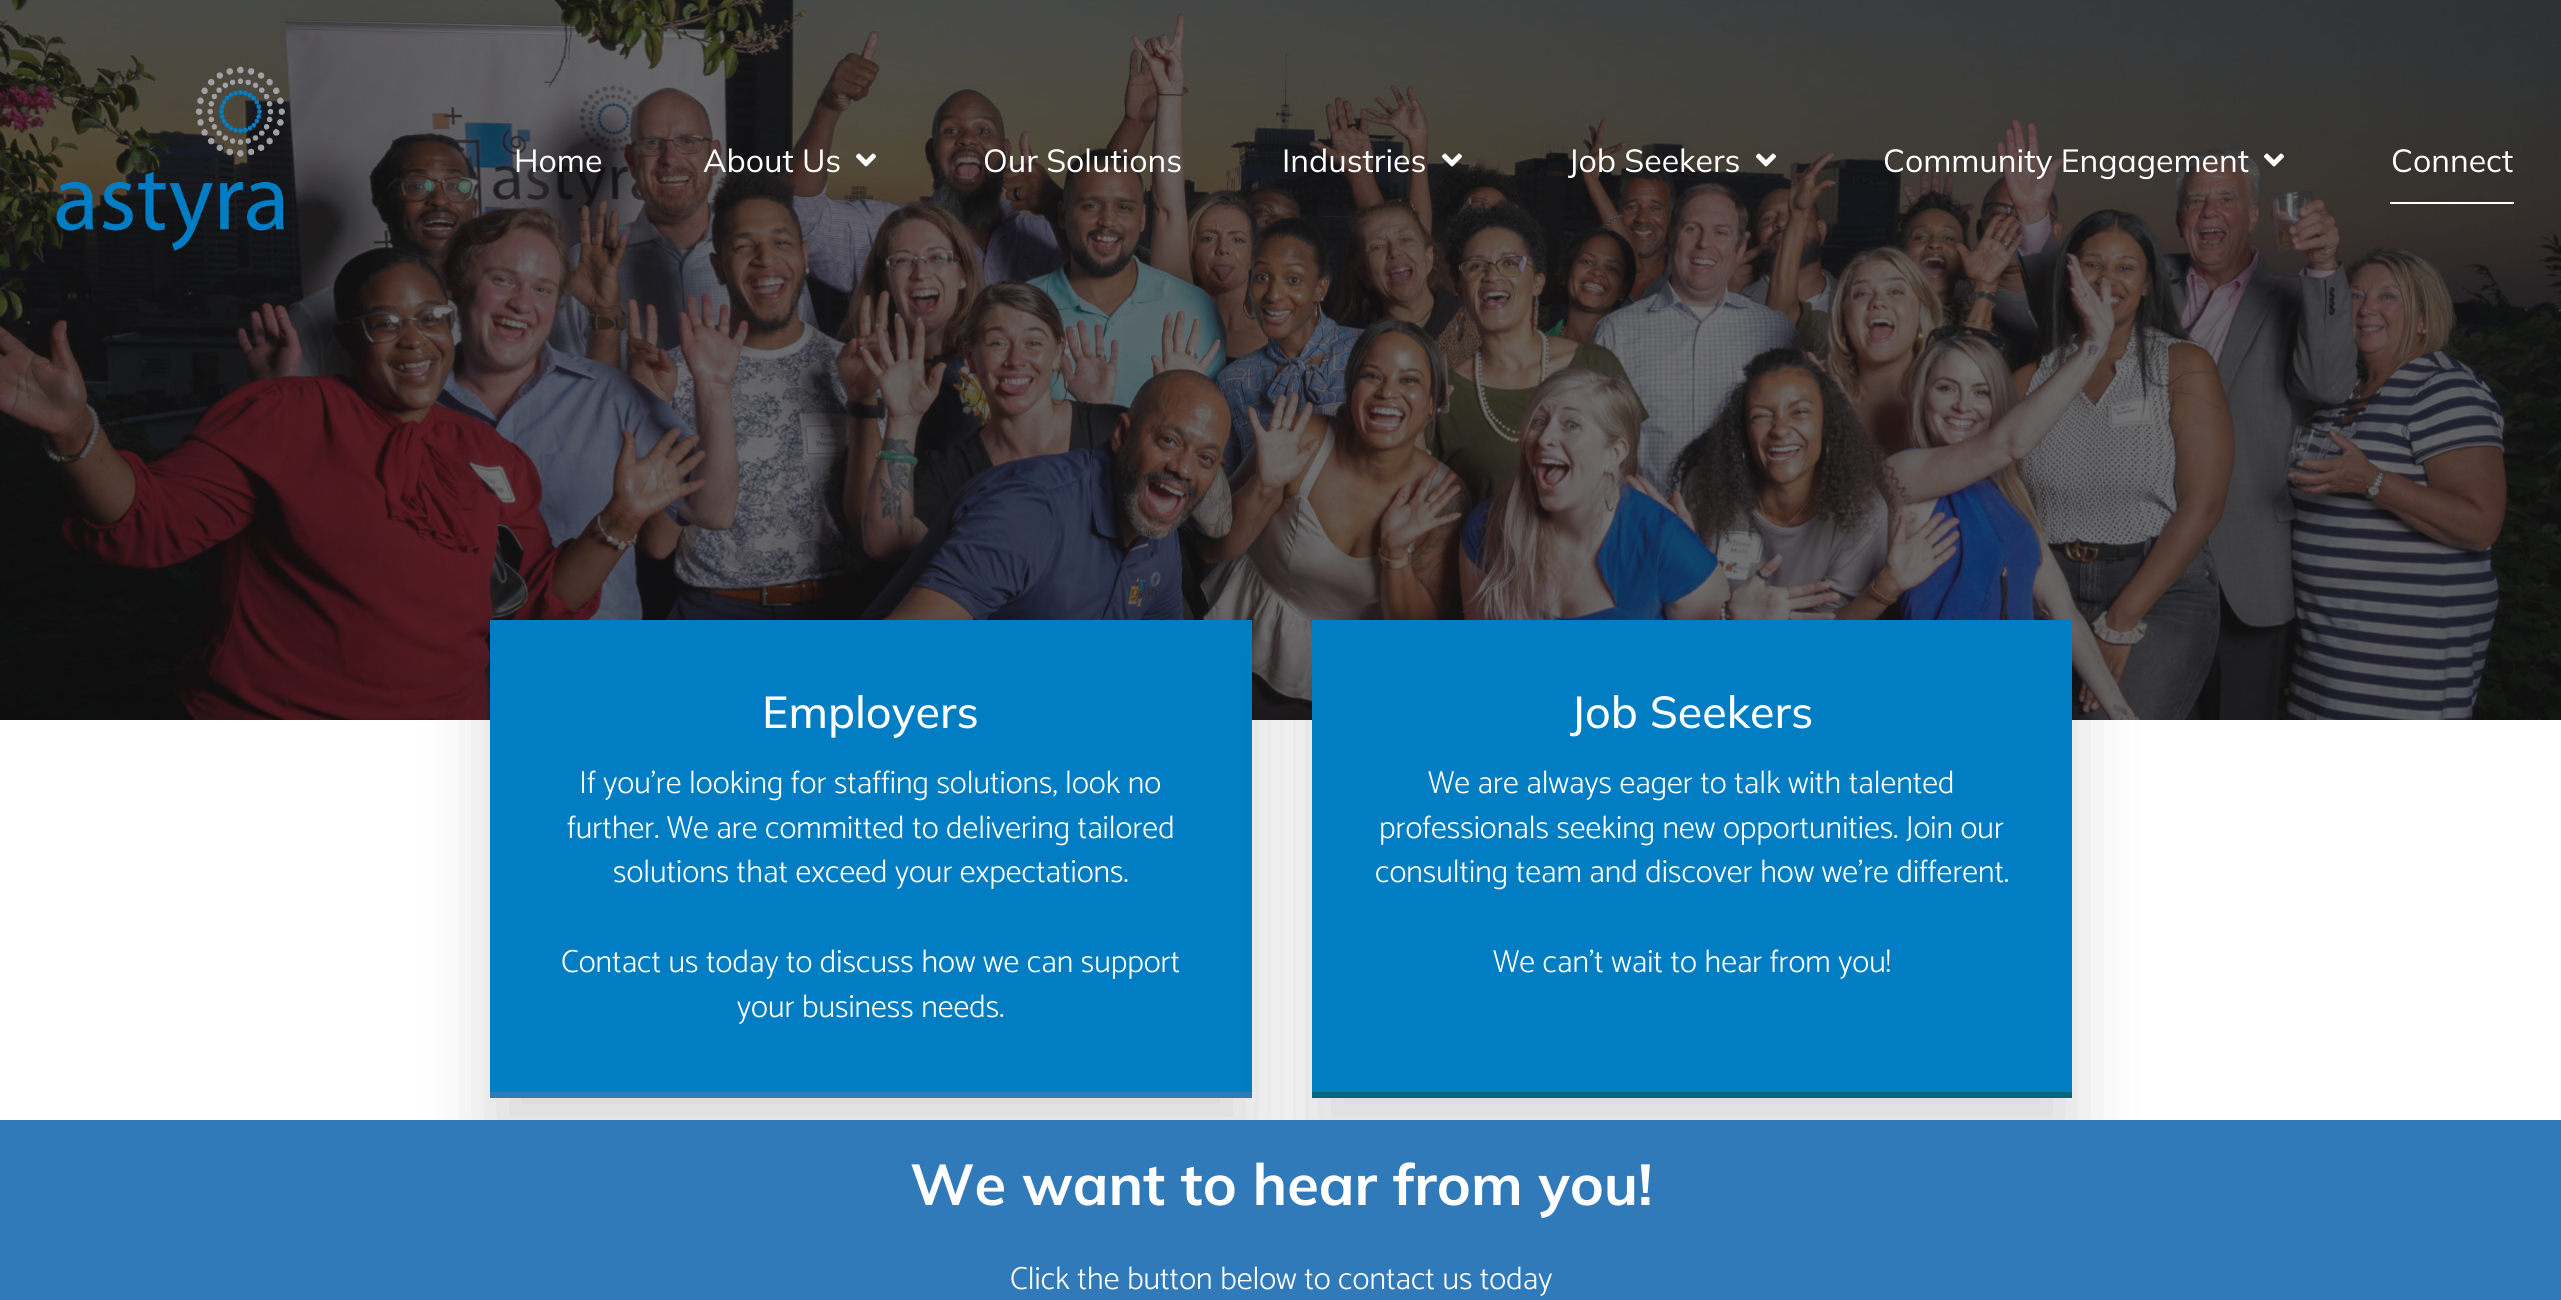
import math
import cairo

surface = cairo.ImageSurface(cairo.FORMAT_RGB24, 2561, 1300)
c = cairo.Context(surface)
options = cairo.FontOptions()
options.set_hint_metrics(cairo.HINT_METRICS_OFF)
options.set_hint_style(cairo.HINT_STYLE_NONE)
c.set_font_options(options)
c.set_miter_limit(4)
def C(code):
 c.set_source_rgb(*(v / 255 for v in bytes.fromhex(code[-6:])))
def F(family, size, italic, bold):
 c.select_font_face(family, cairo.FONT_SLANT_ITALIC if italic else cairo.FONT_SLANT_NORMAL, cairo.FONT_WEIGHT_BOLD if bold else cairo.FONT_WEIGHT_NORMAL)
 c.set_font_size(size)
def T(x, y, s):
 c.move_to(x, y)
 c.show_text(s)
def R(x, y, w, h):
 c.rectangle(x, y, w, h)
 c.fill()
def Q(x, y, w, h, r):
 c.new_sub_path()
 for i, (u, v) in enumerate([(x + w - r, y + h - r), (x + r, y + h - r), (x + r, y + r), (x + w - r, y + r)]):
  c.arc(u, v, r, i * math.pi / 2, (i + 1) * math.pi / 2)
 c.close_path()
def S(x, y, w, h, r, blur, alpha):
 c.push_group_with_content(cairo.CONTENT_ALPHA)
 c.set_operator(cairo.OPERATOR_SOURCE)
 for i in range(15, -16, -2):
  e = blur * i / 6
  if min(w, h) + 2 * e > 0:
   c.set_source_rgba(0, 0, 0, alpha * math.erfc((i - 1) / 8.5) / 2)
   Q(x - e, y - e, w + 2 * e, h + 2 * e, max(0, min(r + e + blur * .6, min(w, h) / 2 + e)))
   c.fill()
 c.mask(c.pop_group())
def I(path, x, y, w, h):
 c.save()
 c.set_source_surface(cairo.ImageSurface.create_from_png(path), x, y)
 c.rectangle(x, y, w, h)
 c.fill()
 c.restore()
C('ffffff')
c.paint()
I('1.png',0,0,2561,720)
I('2.png',56,66,229,185)
F('Mulish',32,0,0)
C('ffffff')
T(514,172,'Home')
T(703,172,'About Us')
I('3.png',856,153,20,14)
T(983,172,'Our Solutions')
T(1282,172,'Industries')
I('4.png',1442,153,20,14)
T(1568,172,'Job Seekers')
I('5.png',1756,153,20,14)
T(1883,172,'Community Engagement')
I('6.png',2264,153,20,14)
T(2391,172,'Connect')
R(2390,202,124,2)
C('000000')
S(490,658,762,478,0,38,.16)
C('007dc3')
R(490,620,762,472)
C('317ab9')
R(490,1092,762,6)
F('Mulish Medium',44.75,0,0)
C('ffffff')
T(762,728,'Employers')
F('Catamaran Light',32,0,0)
T(579,793,'If you’re looking for staffing solutions, look no')
T(567,838,'further. We are committed to delivering tailored')
T(613,882,'solutions that exceed your expectations.')
T(561,972,'Contact us today to discuss how we can support')
T(737,1017,'your business needs.')
C('000000')
S(1312,658,760,478,0,38,.16)
C('007dc3')
R(1312,620,760,472)
C('02667f')
R(1312,1092,760,6)
F('Mulish Medium',44.75,0,0)
C('ffffff')
T(1570,728,'Job Seekers')
F('Catamaran Light',32,0,0)
T(1428,793,'We are always eager to talk with talented')
T(1379,838,'professionals seeking new opportunities. Join our')
T(1375,882,'consulting team and discover how we’re different.')
T(1493,972,'We can’t wait to hear from you!')
C('317ab9')
R(0,1120,2561,180)
F('Mulish',57.6,0,1)
C('ffffff')
T(910,1205,'We want to hear from you!')
F('Catamaran Light',32,0,0)
T(1010,1289,'Click the button below to contact us today')
surface.write_to_png('o.png')
